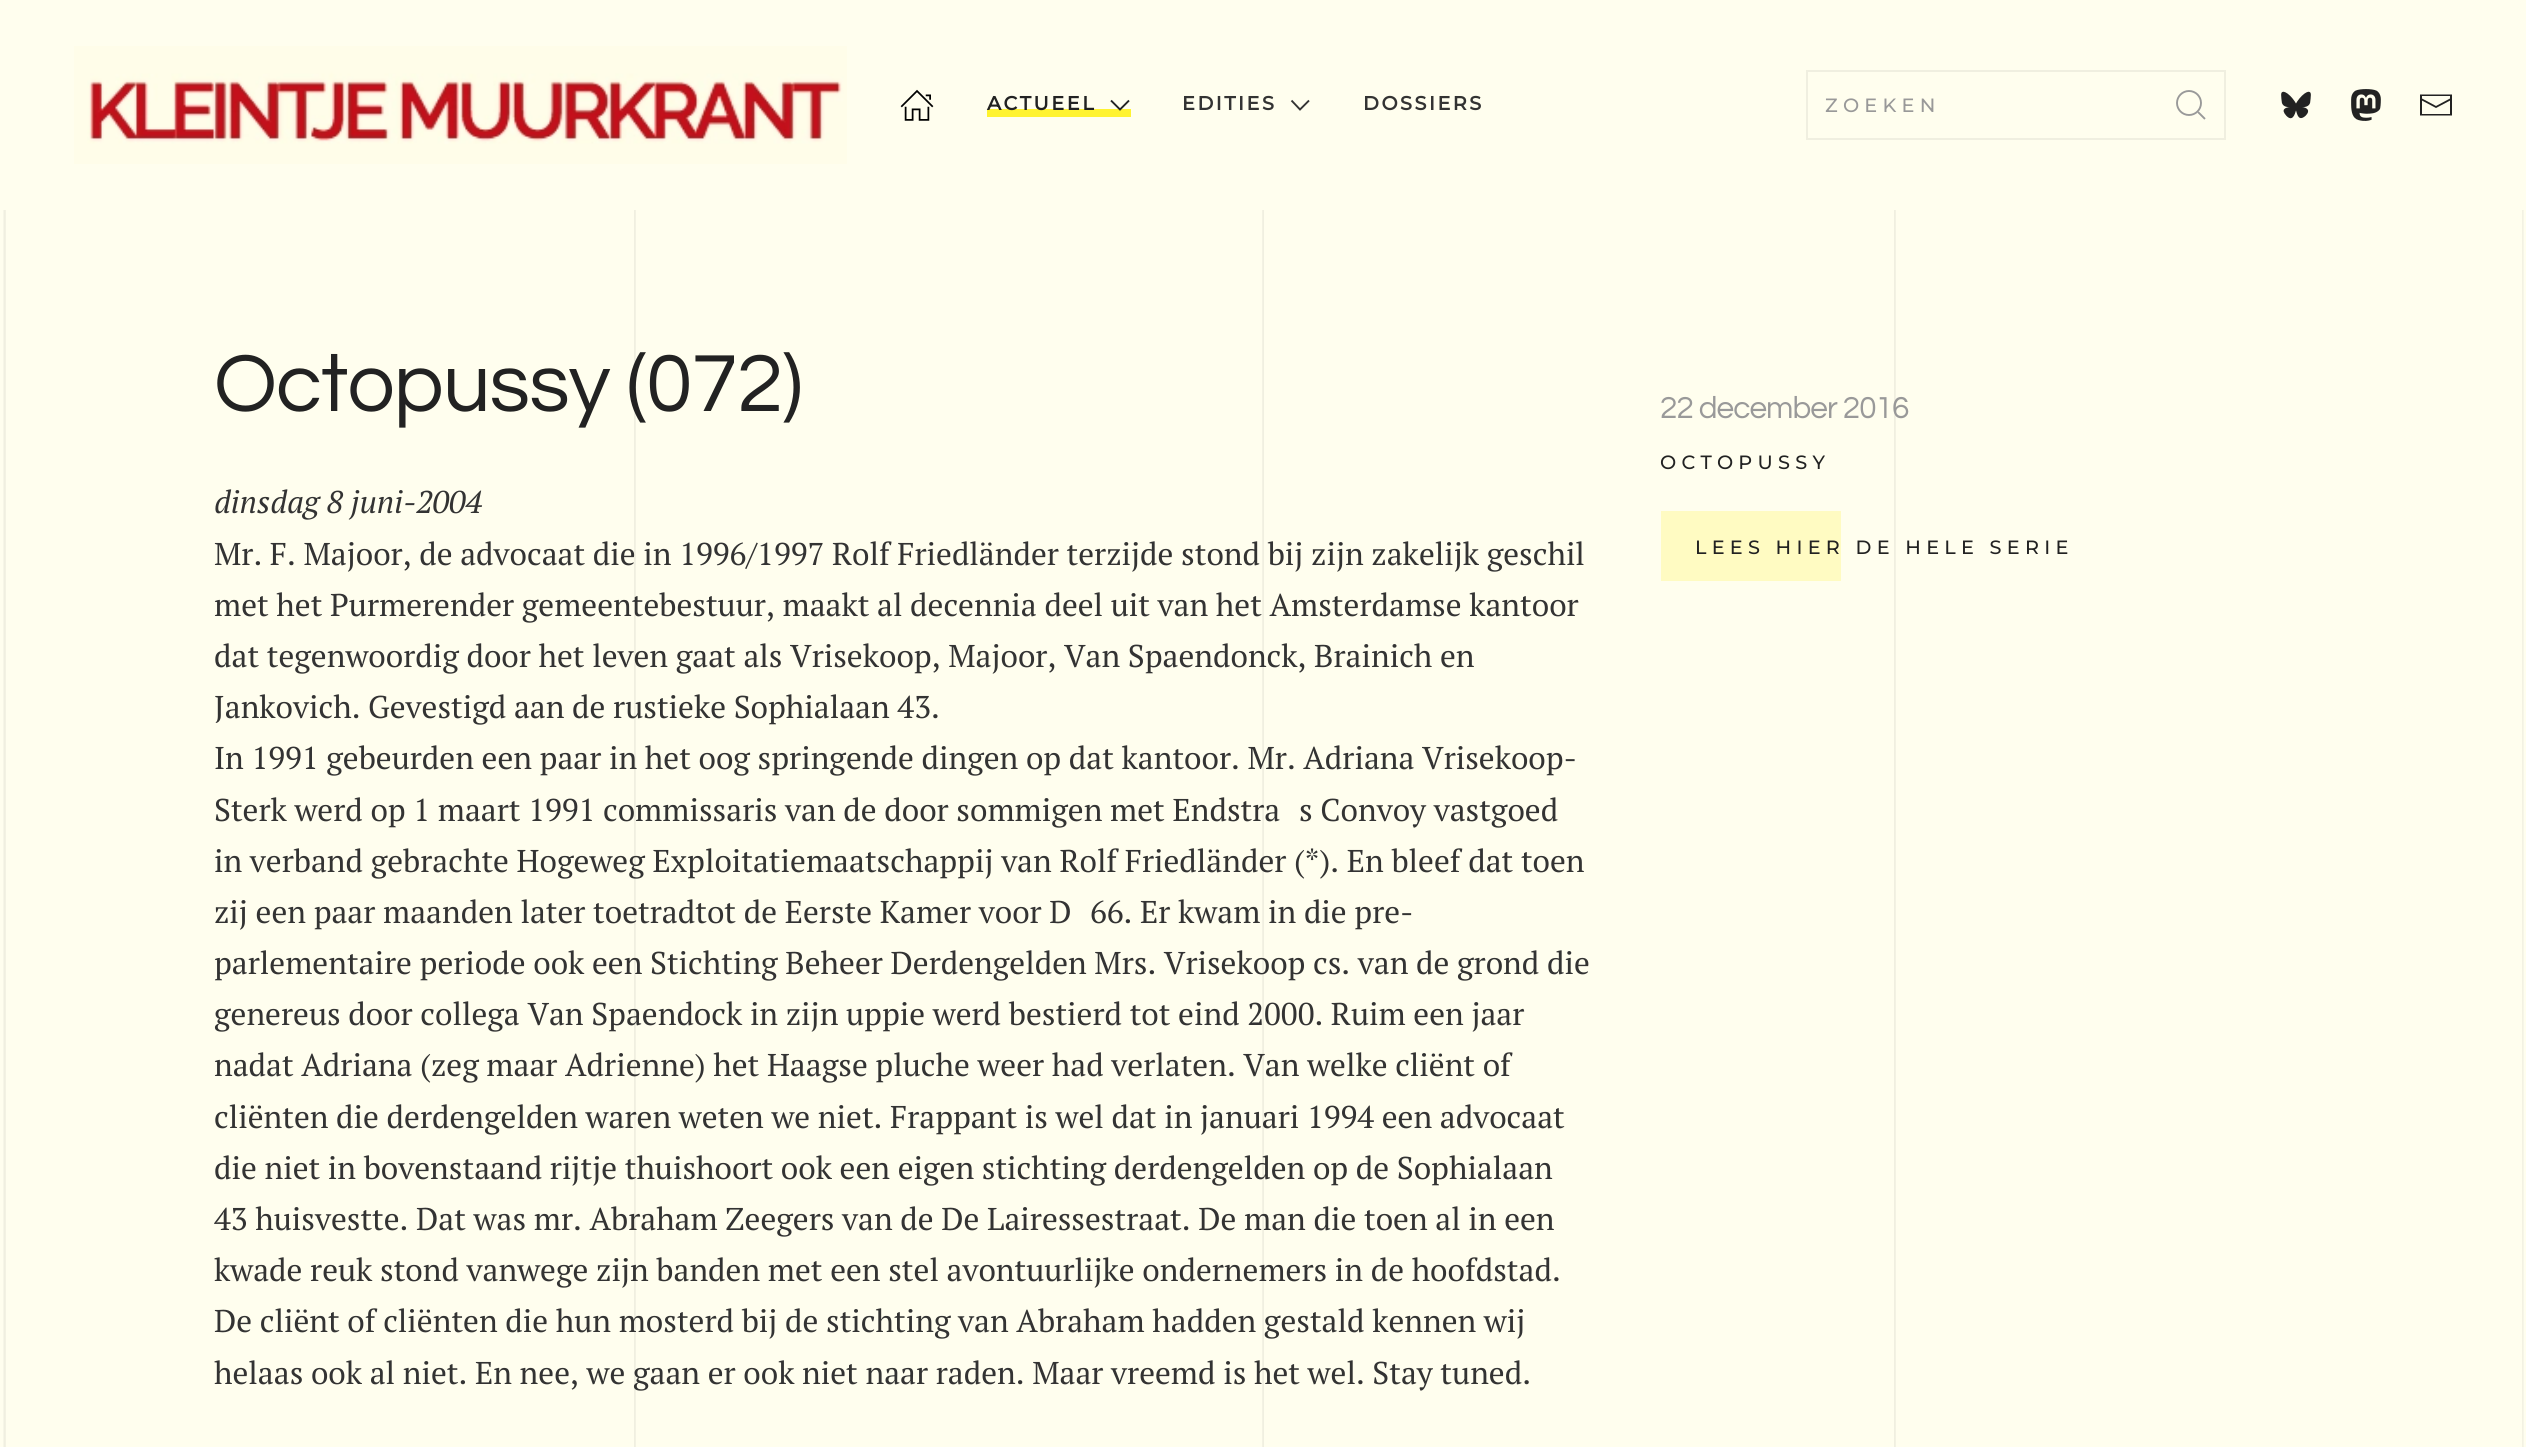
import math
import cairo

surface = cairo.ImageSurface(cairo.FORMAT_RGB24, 2526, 1447)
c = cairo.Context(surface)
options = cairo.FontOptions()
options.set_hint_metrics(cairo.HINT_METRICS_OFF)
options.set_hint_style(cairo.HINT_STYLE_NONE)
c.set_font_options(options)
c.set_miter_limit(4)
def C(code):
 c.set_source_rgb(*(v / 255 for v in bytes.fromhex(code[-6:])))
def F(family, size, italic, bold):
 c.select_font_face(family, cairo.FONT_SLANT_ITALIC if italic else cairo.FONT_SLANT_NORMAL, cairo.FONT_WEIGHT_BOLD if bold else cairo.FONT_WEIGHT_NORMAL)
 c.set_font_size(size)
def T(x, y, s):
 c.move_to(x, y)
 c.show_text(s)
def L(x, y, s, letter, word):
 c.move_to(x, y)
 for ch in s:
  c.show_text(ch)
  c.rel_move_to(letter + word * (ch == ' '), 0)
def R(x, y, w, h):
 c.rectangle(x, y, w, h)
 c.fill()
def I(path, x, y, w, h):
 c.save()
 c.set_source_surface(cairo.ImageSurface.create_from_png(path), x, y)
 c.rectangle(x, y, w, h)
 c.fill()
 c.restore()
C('fffeee')
c.paint()
I('1.png',74,46,773,118)
I('2.png',900,89,34,32)
C('fff330')
R(987,109,144,8)
F('Montserrat',19.25,0,1)
C('222222')
L(987,110,'ACTUEEL',2.5,0)
c.new_path()
c.move_to(1111,100.5)
c.line_to(1120,109.5)
c.line_to(1129,100.5)
c.set_line_width(1.9)
c.stroke()
C('333333')
L(1182,110,'EDITIES',2.5,0)
c.new_path()
c.move_to(1291.5,100.5)
c.line_to(1300,109.5)
c.line_to(1309,100.5)
c.stroke()
L(1363,110,'DOSSIERS',2.5,0)
c.rectangle(1807,71,418,68)
C('f0efe0')
c.set_line_width(2)
c.stroke()
F('Montserrat Thin',19.25,0,0)
C('999999')
L(1825,112,'ZOEKEN',5.25,0)
c.new_path()
c.arc(2189,103,12,0,2 * math.pi)
c.set_line_width(1.9)
c.stroke()
c.new_path()
c.move_to(2198,112)
c.line_to(2205,119)
c.close_path()
c.stroke()
I('3.png',2281,91,30,28)
I('4.png',2351,89,30,32)
c.new_path()
c.move_to(2421,99)
c.line_to(2436,107)
c.line_to(2451,99)
C('222222')
c.set_line_width(1.8)
c.stroke()
c.new_path()
c.move_to(2420,94.5)
c.line_to(2420,115.5)
c.line_to(2452,115.5)
c.line_to(2452,94.5)
c.close_path()
c.move_to(2450,114)
c.line_to(2422,114)
c.line_to(2422,96)
c.line_to(2450,96)
c.close_path()
c.fill()
I('5.png',3,210,2521,1237)
F('Questrial',84,0,0)
L(214,411,'Octopussy (072)',-.9,0)
F('PT Serif',31.5,1,0)
C('333333')
T(214,513,'dinsdag 8 juni-2004')
F('PT Serif',31.5,0,0)
T(214,565,'Mr. F. Majoor, de advocaat die in 1996/1997 Rolf Friedländer terzijde stond bij zijn zakelijk geschil')
T(214,616,'met het Purmerender gemeentebestuur, maakt al decennia deel uit van het Amsterdamse kantoor')
T(214,667,'dat tegenwoordig door het leven gaat als Vrisekoop, Majoor, Van Spaendonck, Brainich en')
T(214,718,'Jankovich. Gevestigd aan de rustieke Sophialaan 43.')
T(214,769,'In 1991 gebeurden een paar in het oog springende dingen op dat kantoor. Mr. Adriana Vrisekoop-')
T(214,821,'Sterk werd op 1 maart 1991 commissaris van de door sommigen met Endstra')
T(1299,821,'s Convoy vastgoed')
T(214,872,'in verband gebrachte Hogeweg Exploitatiemaatschappij van Rolf Friedländer (*). En bleef dat toen')
T(214,923,'zij een paar maanden later toetradtot de Eerste Kamer voor D')
T(1090,923,'66. Er kwam in die pre-')
T(214,974,'parlementaire periode ook een Stichting Beheer Derdengelden Mrs. Vrisekoop cs. van de grond die')
T(214,1025,'genereus door collega Van Spaendock in zijn uppie werd bestierd tot eind 2000. Ruim een jaar')
T(214,1076,'nadat Adriana (zeg maar Adrienne) het Haagse pluche weer had verlaten. Van welke cliënt of')
T(214,1128,'cliënten die derdengelden waren weten we niet. Frappant is wel dat in januari 1994 een advocaat')
T(214,1179,'die niet in bovenstaand rijtje thuishoort ook een eigen stichting derdengelden op de Sophialaan')
T(214,1230,'43 huisvestte. Dat was mr. Abraham Zeegers van de De Lairessestraat. De man die toen al in een')
T(214,1281,'kwade reuk stond vanwege zijn banden met een stel avontuurlijke ondernemers in de hoofdstad.')
T(214,1332,'De cliënt of cliënten die hun mosterd bij de stichting van Abraham hadden gestald kennen wij')
T(214,1384,'helaas ook al niet. En nee, we gaan er ook niet naar raden. Maar vreemd is het wel. Stay tuned.')
F('Questrial',31.5,0,0)
C('999999')
L(1660,418,'22 december 2016',-.9,0)
F('Montserrat Thin',19.25,0,0)
C('222222')
L(1660,469,'OCTOPUSSY',5.25,0)
C('fffbc2')
R(1661,511,180,70)
C('222222')
L(1695,554,'LEES HIER DE HELE SERIE',5.25,0)
surface.write_to_png('o.png')
